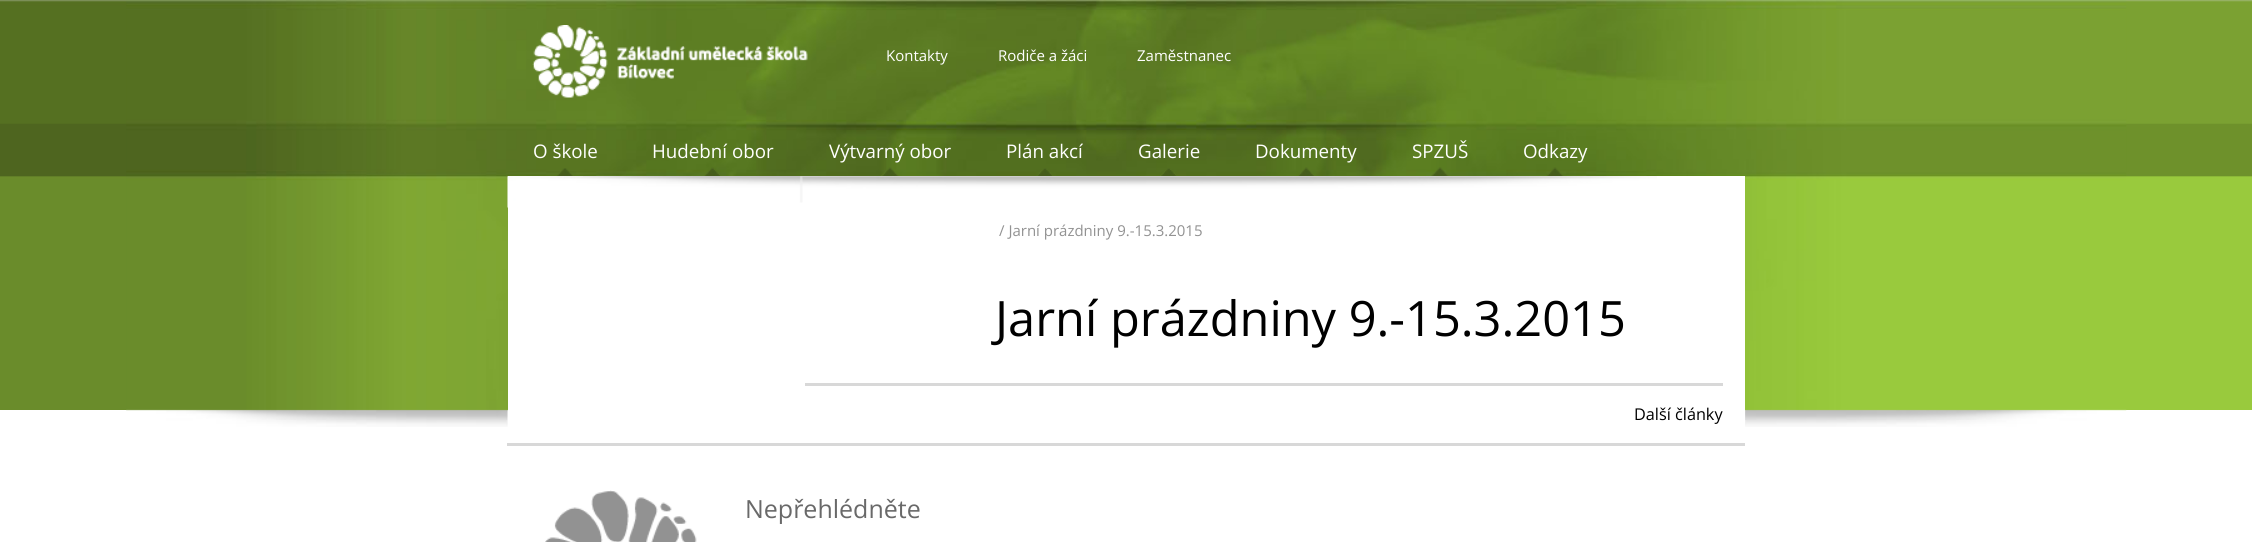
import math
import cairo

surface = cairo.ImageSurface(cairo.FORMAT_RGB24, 2252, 542)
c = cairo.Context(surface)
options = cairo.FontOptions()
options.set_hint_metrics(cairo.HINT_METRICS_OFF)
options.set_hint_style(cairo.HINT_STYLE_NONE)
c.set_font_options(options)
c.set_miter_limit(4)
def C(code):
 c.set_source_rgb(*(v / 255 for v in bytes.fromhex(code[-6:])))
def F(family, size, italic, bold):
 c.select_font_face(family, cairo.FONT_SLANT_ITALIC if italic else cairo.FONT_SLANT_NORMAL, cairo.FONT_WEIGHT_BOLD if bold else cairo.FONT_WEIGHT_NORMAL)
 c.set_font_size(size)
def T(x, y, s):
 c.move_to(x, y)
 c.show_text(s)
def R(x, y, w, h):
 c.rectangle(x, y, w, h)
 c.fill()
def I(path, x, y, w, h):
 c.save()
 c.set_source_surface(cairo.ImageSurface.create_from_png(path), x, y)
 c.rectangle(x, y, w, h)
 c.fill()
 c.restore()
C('ffffff')
c.paint()
I('1.png',0,0,127,410)
I('12.png',2126,0,126,410)
I('2.png',126,0,2001,427)
I('3.png',532,25,276,73)
F('Open Sans',15,0,0)
C('ffffff')
T(886,61,'Kontakty')
T(998,61,'Rodiče a žáci')
T(1137,61,'Zaměstnanec')
F('Open Sans',18.75,0,0)
T(533,158,'O škole')
I('4.png',556,168,18,8)
T(652,158,'Hudební obor')
I('5.png',704,167,16,9)
T(829,158,'Výtvarný obor')
I('6.png',881,167,18,9)
T(1006,158,'Plán akcí')
I('7.png',1038,168,14,8)
T(1138,158,'Galerie')
I('8.png',1160,168,16,8)
T(1255,158,'Dokumenty')
I('9.png',1298,167,17,9)
T(1412,158,'SPZUŠ')
I('10.png',1431,167,18,9)
T(1523,158,'Odkazy')
I('11.png',1547,167,17,9)
R(508,176,1237,251)
I('13.png',507,176,1150,32)
I('14.png',583,176,220,27)
C('d8d8d8')
R(805,383,918,3)
F('Open Sans',15,0,0)
C('929292')
T(999,236,'/ Jarní prázdniny 9.-15.3.2015')
F('Open Sans',48.75,0,0)
C('000000')
T(995,336,'Jarní prázdniny 9.-15.3.2015')
F('Open Sans',16.25,0,0)
T(1634,420,'Další články')
C('d8d8d8')
R(507,443,1238,3)
I('15.png',545,490,152,52)
F('Open Sans',25,0,0)
C('696969')
T(745,518,'Nepřehlédněte')
surface.write_to_png('o.png')
